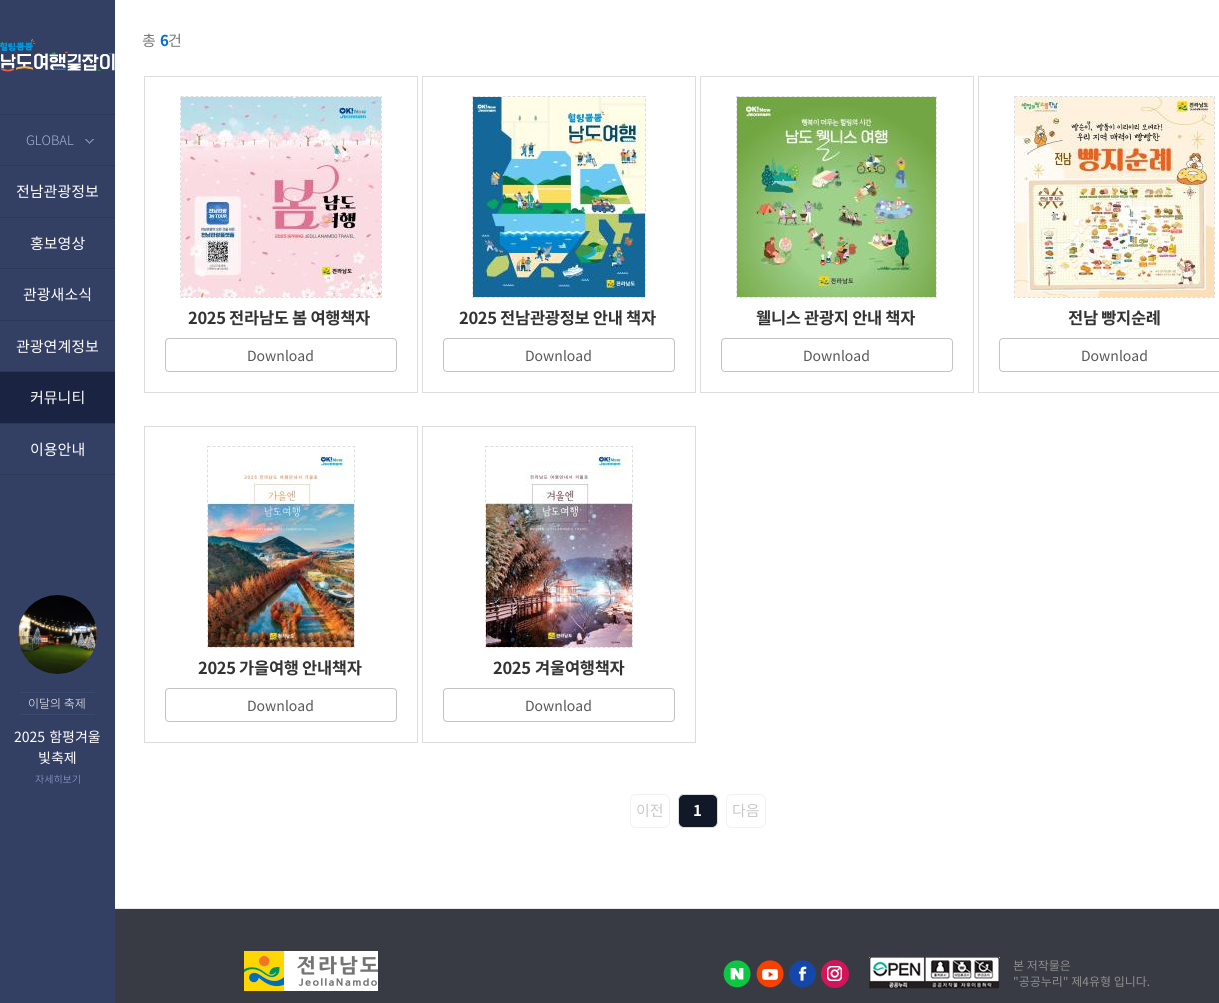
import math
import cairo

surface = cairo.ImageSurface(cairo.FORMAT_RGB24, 1219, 1003)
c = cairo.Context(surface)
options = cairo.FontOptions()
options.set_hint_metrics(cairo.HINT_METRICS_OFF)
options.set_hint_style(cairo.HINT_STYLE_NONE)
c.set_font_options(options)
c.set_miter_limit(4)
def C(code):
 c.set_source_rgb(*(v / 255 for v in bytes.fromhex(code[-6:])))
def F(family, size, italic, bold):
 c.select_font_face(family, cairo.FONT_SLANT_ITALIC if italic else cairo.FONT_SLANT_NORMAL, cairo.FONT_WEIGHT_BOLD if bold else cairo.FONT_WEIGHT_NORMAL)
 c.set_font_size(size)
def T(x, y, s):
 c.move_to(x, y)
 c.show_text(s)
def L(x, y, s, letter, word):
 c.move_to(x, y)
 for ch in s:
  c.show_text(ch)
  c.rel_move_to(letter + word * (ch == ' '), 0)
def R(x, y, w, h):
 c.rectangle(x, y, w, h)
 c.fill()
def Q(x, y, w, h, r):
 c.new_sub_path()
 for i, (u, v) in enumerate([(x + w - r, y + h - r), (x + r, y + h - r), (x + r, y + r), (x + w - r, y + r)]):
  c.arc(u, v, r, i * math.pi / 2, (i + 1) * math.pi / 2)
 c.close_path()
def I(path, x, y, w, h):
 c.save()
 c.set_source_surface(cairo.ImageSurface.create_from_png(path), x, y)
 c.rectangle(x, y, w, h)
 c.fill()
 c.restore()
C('ffffff')
c.paint()
C('343f64')
R(0,0,115,1003)
C('2d3758')
R(0,114,115,1)
I('1.png',0,39,115,33)
I('2.png',85,139,9,5)
R(0,165,115,1)
F('Noto Sans KR Light',13,0,0)
C('a9b4d8')
T(26,145,'GLOBAL')
C('2d3758')
R(0,217,115,1)
F('Noto Sans KR',15,0,0)
C('ffffff')
T(16,197,'전남관광정보')
C('2d3758')
R(0,268,115,1)
C('ffffff')
T(30,249,'홍보영상')
C('2d3758')
R(0,320,115,1)
C('ffffff')
T(23,300,'관광새소식')
C('2d3758')
R(0,371,115,1)
C('ffffff')
T(16,352,'관광연계정보')
C('2d3758')
R(0,423,115,1)
C('1a2342')
R(0,372,115,51)
C('ffffff')
T(30,403,'커뮤니티')
C('2d3758')
R(0,474,115,1)
C('ffffff')
T(30,455,'이용안내')
I('3.png',18,595,79,79)
C('3b4872')
R(20,692,75,1)
R(20,714,75,1)
F('Noto Sans KR Light',12,0,0)
C('ffffff')
T(28,708,'이달의 축제')
F('Noto Sans KR',14,0,0)
L(14,742,'2025 함평겨울',0,1)
T(38,763,'빛축제')
F('Noto Sans KR Light',10,0,0)
C('9eadde')
T(35,783,'자세히보기')
F('Noto Sans KR',15,0,0)
C('777777')
T(142,46,'총')
F('Noto Sans KR',15,0,1)
C('006ed2')
T(160,46,'6')
F('Noto Sans KR',15,0,0)
C('777777')
T(168,46,'건')
c.rectangle(144.5,76.5,273,316)
C('dddddd')
c.set_line_width(1)
c.stroke()
I('4.png',181,97,200,200)
c.new_path()
c.move_to(180.5,96.5)
c.line_to(381.5,96.5)
c.line_to(381.5,297.5)
c.line_to(180.5,297.5)
c.close_path()
c.set_dash([3,2])
c.stroke()
F('Noto Sans KR',16.5,0,1)
C('333333')
L(188,324,'2025 전라남도 봄 여행책자',-.3,0)
Q(165.5,338.5,231,33,3.5)
C('c3c3c3')
c.set_dash([])
c.stroke()
F('Noto Sans KR',14,0,0)
C('585858')
T(247,361,'Download')
c.rectangle(422.5,76.5,273,316)
C('dddddd')
c.stroke()
I('5.png',473,97,172,200)
c.new_path()
c.move_to(472.5,96.5)
c.line_to(645.5,96.5)
c.line_to(645.5,297.5)
c.line_to(472.5,297.5)
c.close_path()
c.set_dash([3,2])
c.stroke()
F('Noto Sans KR',16.5,0,1)
C('333333')
L(459,324,'2025 전남관광정보 안내 책자',-.3,0)
Q(443.5,338.5,231,33,3.5)
C('c3c3c3')
c.set_dash([])
c.stroke()
F('Noto Sans KR',14,0,0)
C('585858')
T(525,361,'Download')
c.rectangle(700.5,76.5,273,316)
C('dddddd')
c.stroke()
I('6.png',737,97,199,200)
c.new_path()
c.move_to(736.5,96.5)
c.line_to(936.5,96.5)
c.line_to(936.5,297.5)
c.line_to(736.5,297.5)
c.close_path()
c.set_dash([3,2])
c.stroke()
F('Noto Sans KR',16.5,0,1)
C('333333')
L(756,324,'웰니스 관광지 안내 책자',-.3,0)
Q(721.5,338.5,231,33,3.5)
C('c3c3c3')
c.set_dash([])
c.stroke()
F('Noto Sans KR',14,0,0)
C('585858')
T(803,361,'Download')
c.rectangle(978.5,76.5,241,316)
C('dddddd')
c.stroke()
I('7.png',1015,97,199,200)
c.new_path()
c.move_to(1014.5,96.5)
c.line_to(1214.5,96.5)
c.line_to(1214.5,297.5)
c.line_to(1014.5,297.5)
c.close_path()
c.set_dash([3,2])
c.stroke()
F('Noto Sans KR',16.5,0,1)
C('333333')
L(1068,324,'전남 빵지순례',-.3,0)
Q(999.5,338.5,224,33,3.5)
C('c3c3c3')
c.set_dash([])
c.stroke()
F('Noto Sans KR',14,0,0)
C('585858')
T(1081,361,'Download')
c.rectangle(144.5,426.5,273,316)
C('dddddd')
c.stroke()
I('8.png',208,447,146,200)
c.new_path()
c.move_to(207.5,446.5)
c.line_to(354.5,446.5)
c.line_to(354.5,647.5)
c.line_to(207.5,647.5)
c.close_path()
c.set_dash([3,2])
c.stroke()
F('Noto Sans KR',16.5,0,1)
C('333333')
L(198,674,'2025 가을여행 안내책자',-.3,0)
Q(165.5,688.5,231,33,3.5)
C('c3c3c3')
c.set_dash([])
c.stroke()
F('Noto Sans KR',14,0,0)
C('585858')
T(247,711,'Download')
c.rectangle(422.5,426.5,273,316)
C('dddddd')
c.stroke()
I('9.png',486,447,146,200)
c.new_path()
c.move_to(485.5,446.5)
c.line_to(632.5,446.5)
c.line_to(632.5,647.5)
c.line_to(485.5,647.5)
c.close_path()
c.set_dash([3,2])
c.stroke()
F('Noto Sans KR',16.5,0,1)
C('333333')
L(493,674,'2025 겨울여행책자',-.3,1)
Q(443.5,688.5,231,33,3.5)
C('c3c3c3')
c.set_dash([])
c.stroke()
F('Noto Sans KR',14,0,0)
C('585858')
T(525,711,'Download')
Q(630.5,794.5,39,33,5.5)
C('f1f1f1')
c.stroke()
F('Noto Sans KR',15,0,0)
C('c9c9c9')
T(636,816,'이전')
C('111827')
Q(678.5,794.5,39,33,5.5)
c.fill_preserve()
C('dddddd')
c.stroke()
F('Noto Sans KR',15,0,1)
C('ffffff')
T(693,816,'1')
Q(726.5,794.5,39,33,5.5)
C('f1f1f1')
c.stroke()
F('Noto Sans KR',15,0,0)
C('c9c9c9')
T(732,816,'다음')
C('393b44')
R(115,909,1104,94)
C('e8e8e8')
R(115,908,1104,1)
I('10.png',244,951,134,40)
I('11.png',723,960,28,28)
I('12.png',756,960,28,28)
I('13.png',789,960,27,28)
I('14.png',821,960,28,28)
I('15.png',869,957,131,32)
F('Noto Sans KR',12,0,0)
C('8e8e8e')
T(1013,970,'본 저작물은')
T(1013,986,'"공공누리" 제4유형 입니다.')
surface.write_to_png('o.png')
